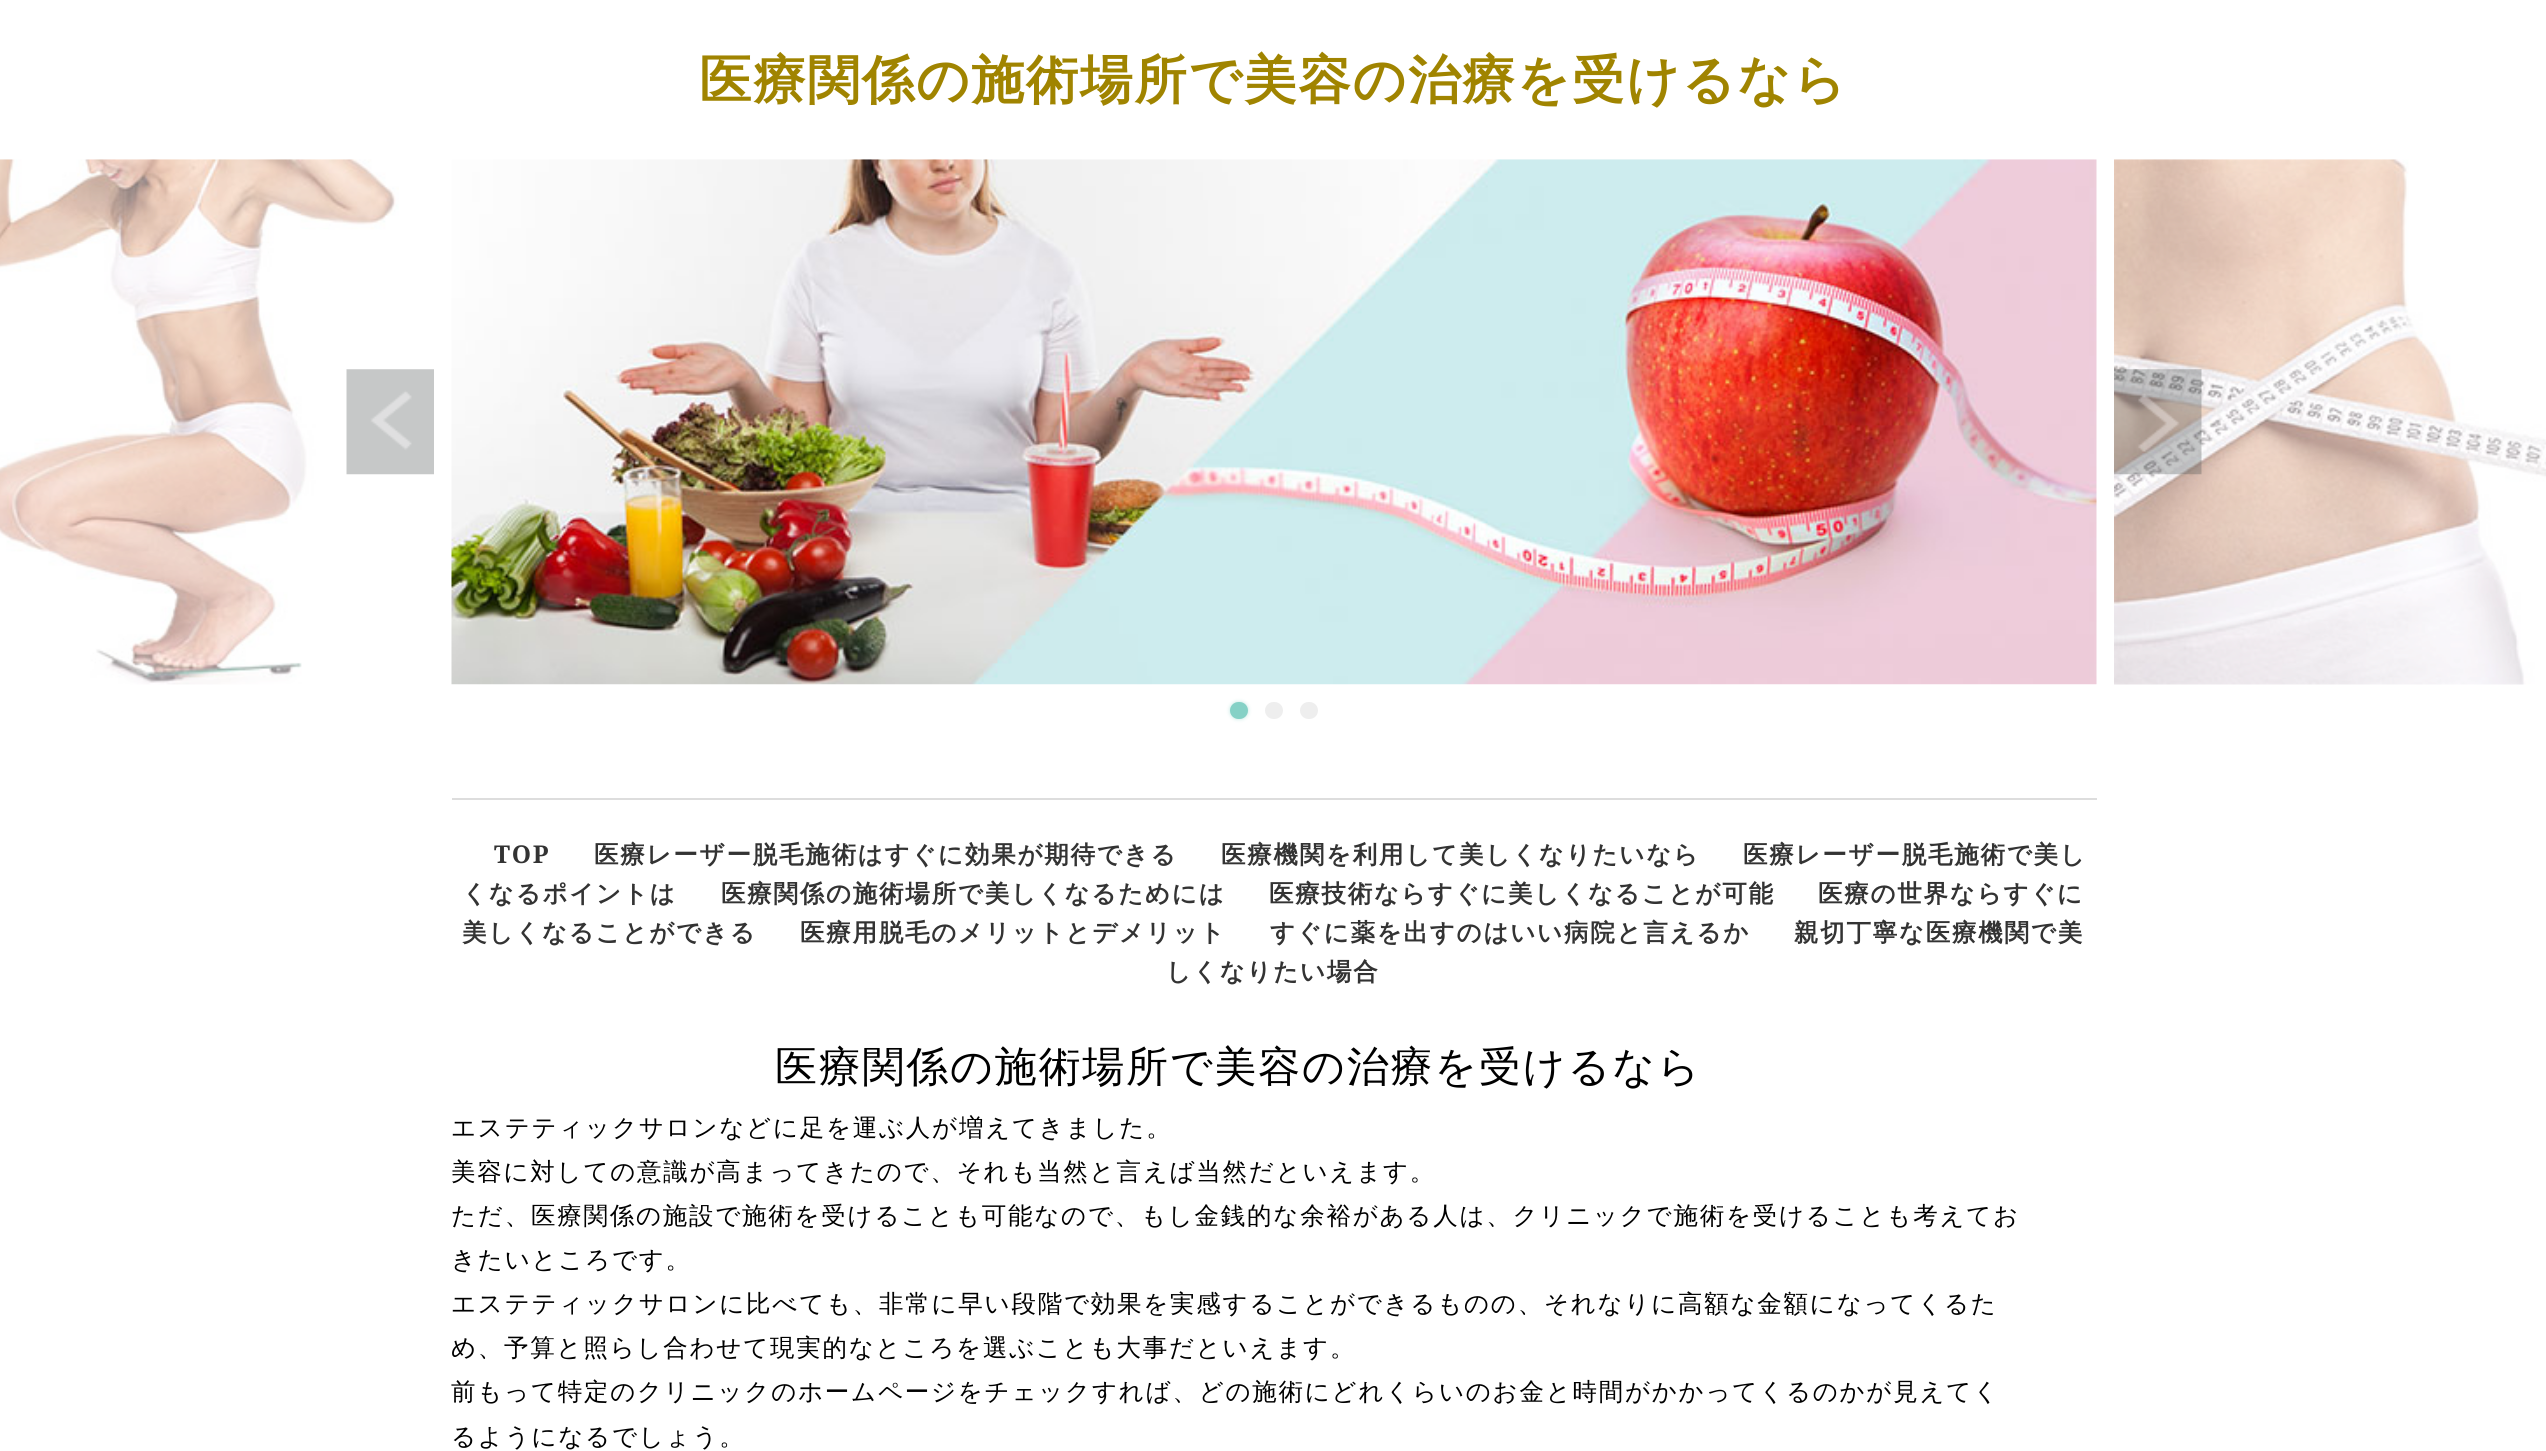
import math
import cairo

surface = cairo.ImageSurface(cairo.FORMAT_RGB24, 2546, 1451)
c = cairo.Context(surface)
options = cairo.FontOptions()
options.set_hint_metrics(cairo.HINT_METRICS_OFF)
options.set_hint_style(cairo.HINT_STYLE_NONE)
c.set_font_options(options)
c.set_miter_limit(4)
def C(code):
 c.set_source_rgb(*(v / 255 for v in bytes.fromhex(code[-6:])))
def F(family, size, italic, bold):
 c.select_font_face(family, cairo.FONT_SLANT_ITALIC if italic else cairo.FONT_SLANT_NORMAL, cairo.FONT_WEIGHT_BOLD if bold else cairo.FONT_WEIGHT_NORMAL)
 c.set_font_size(size)
def L(x, y, s, letter, word):
 c.move_to(x, y)
 for ch in s:
  c.show_text(ch)
  c.rel_move_to(letter + word * (ch == ' '), 0)
def R(x, y, w, h):
 c.rectangle(x, y, w, h)
 c.fill()
def Q(x, y, w, h, r):
 c.new_sub_path()
 for i, (u, v) in enumerate([(x + w - r, y + h - r), (x + r, y + h - r), (x + r, y + r), (x + w - r, y + r)]):
  c.arc(u, v, r, i * math.pi / 2, (i + 1) * math.pi / 2)
 c.close_path()
def S(x, y, w, h, r, blur, alpha):
 c.push_group_with_content(cairo.CONTENT_ALPHA)
 c.set_operator(cairo.OPERATOR_SOURCE)
 for i in range(15, -16, -2):
  e = blur * i / 6
  if min(w, h) + 2 * e > 0:
   c.set_source_rgba(0, 0, 0, alpha * math.erfc((i - 1) / 8.5) / 2)
   Q(x - e, y - e, w + 2 * e, h + 2 * e, max(0, min(r + e + blur * .6, min(w, h) / 2 + e)))
   c.fill()
 c.mask(c.pop_group())
def I(path, x, y, w, h):
 c.save()
 c.set_source_surface(cairo.ImageSurface.create_from_png(path), x, y)
 c.rectangle(x, y, w, h)
 c.fill()
 c.restore()
C('ffffff')
c.paint()
F('WenQuanYi Zen Hei',52.5,0,1)
C('a08400')
L(699,98,'医療関係の施術場所で美容の治療を受けるなら',1.75,0)
I('1.png',0,159,399,526)
I('2.png',451,159,1646,526)
I('3.png',2114,159,432,526)
I('4.png',346,369,88,106)
I('5.png',2114,369,88,106)
C('85d1c6')
S(1230,702,18,17,8.5,2,.5)
C('85d1c6')
Q(1230,702,18,17,8.5)
c.fill()
C('eeeeee')
Q(1265,702,18,17,8.5)
c.fill()
Q(1300,702,18,17,8.5)
c.fill()
C('dddddd')
R(452,798,1645,2)
F('Noto Serif',24.5,0,1)
C('333333')
L(494,863,'TOP',1.75,0)
F('WenQuanYi Zen Hei',24.5,0,1)
L(594,863,'医療レーザー脱毛施術はすぐに効果が期待できる',1.75,0)
L(1221,863,'医療機関を利用して美しくなりたいなら',1.75,0)
L(1743,863,'医療レーザー脱毛施術で美し',1.75,0)
L(462,902,'くなるポイントは',1.75,0)
L(721,902,'医療関係の施術場所で美しくなるためには',1.75,0)
L(1269,902,'医療技術ならすぐに美しくなることが可能',1.75,0)
L(1818,902,'医療の世界ならすぐに',1.75,0)
L(462,941,'美しくなることができる',1.75,0)
L(800,941,'医療用脱毛のメリットとデメリット',1.75,0)
L(1270,941,'すぐに薬を出すのはいい病院と言えるか',1.75,0)
L(1794,941,'親切丁寧な医療機関で美',1.75,0)
L(1166,980,'しくなりたい場合',1.75,0)
F('WenQuanYi Zen Hei Medium',42,0,0)
C('000000')
L(775,1081,'医療関係の施術場所で美容の治療を受けるなら',1.75,0)
F('WenQuanYi Zen Hei Medium',24.5,0,0)
L(451,1136,'エステティックサロンなどに足を運ぶ人が増えてきました。',1.75,0)
L(451,1180,'美容に対しての意識が高まってきたので、それも当然と言えば当然だといえます。',1.75,0)
L(451,1224,'ただ、医療関係の施設で施術を受けることも可能なので、もし金銭的な余裕がある人は、クリニックで施術を受けることも考えてお',1.75,0)
L(451,1268,'きたいところです。',1.75,0)
L(451,1312,'エステティックサロンに比べても、非常に早い段階で効果を実感することができるものの、それなりに高額な金額になってくるた',1.75,0)
c.save()
c.rectangle(452,728,1645,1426)
c.clip()
L(451,1356,'め、予算と照らし合わせて現実的なところを選ぶことも大事だといえます。',1.75,0)
c.restore()
L(451,1400,'前もって特定のクリニックのホームページをチェックすれば、どの施術にどれくらいのお金と時間がかかってくるのかが見えてく',1.75,0)
L(451,1445,'るようになるでしょう。',1.75,0)
surface.write_to_png('o.png')
